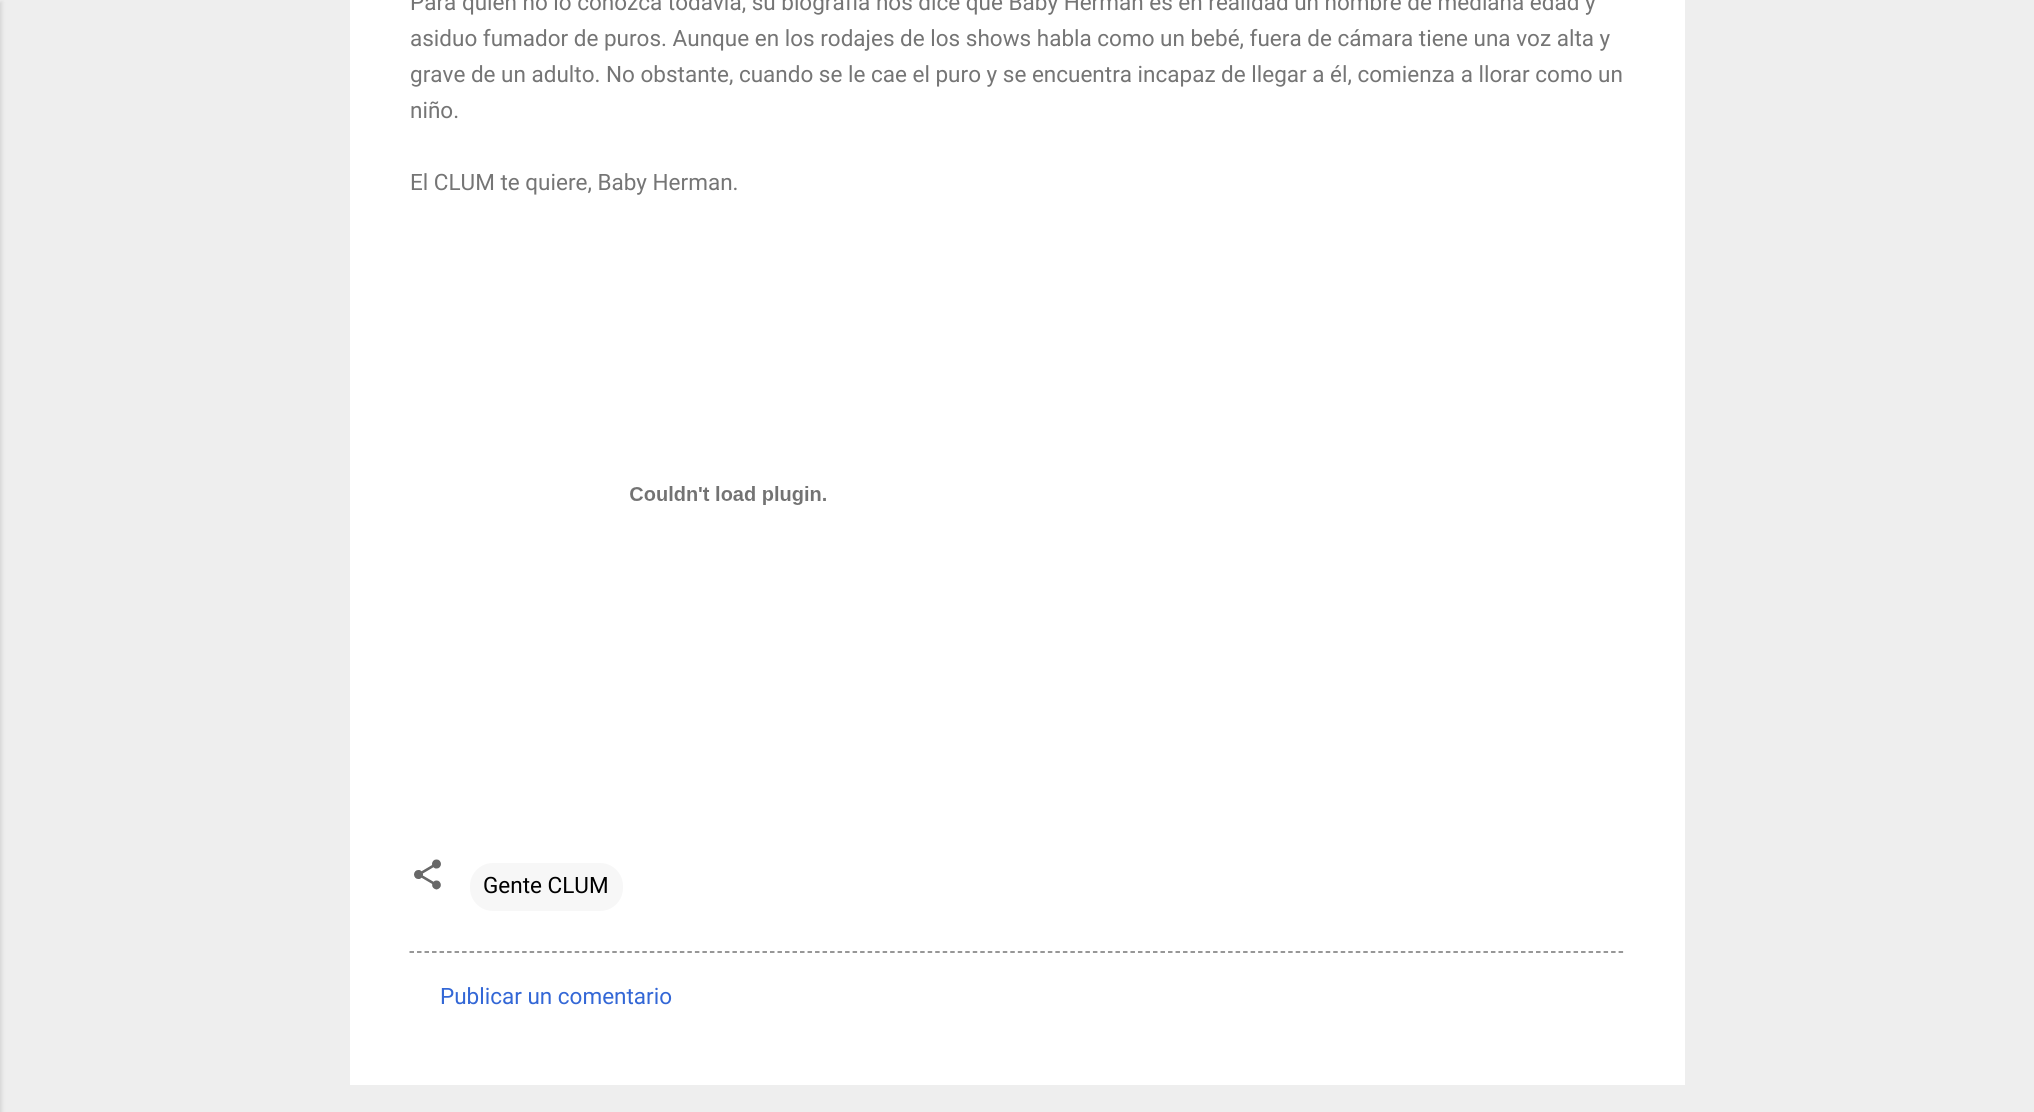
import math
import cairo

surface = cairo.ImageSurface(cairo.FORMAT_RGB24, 2034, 1112)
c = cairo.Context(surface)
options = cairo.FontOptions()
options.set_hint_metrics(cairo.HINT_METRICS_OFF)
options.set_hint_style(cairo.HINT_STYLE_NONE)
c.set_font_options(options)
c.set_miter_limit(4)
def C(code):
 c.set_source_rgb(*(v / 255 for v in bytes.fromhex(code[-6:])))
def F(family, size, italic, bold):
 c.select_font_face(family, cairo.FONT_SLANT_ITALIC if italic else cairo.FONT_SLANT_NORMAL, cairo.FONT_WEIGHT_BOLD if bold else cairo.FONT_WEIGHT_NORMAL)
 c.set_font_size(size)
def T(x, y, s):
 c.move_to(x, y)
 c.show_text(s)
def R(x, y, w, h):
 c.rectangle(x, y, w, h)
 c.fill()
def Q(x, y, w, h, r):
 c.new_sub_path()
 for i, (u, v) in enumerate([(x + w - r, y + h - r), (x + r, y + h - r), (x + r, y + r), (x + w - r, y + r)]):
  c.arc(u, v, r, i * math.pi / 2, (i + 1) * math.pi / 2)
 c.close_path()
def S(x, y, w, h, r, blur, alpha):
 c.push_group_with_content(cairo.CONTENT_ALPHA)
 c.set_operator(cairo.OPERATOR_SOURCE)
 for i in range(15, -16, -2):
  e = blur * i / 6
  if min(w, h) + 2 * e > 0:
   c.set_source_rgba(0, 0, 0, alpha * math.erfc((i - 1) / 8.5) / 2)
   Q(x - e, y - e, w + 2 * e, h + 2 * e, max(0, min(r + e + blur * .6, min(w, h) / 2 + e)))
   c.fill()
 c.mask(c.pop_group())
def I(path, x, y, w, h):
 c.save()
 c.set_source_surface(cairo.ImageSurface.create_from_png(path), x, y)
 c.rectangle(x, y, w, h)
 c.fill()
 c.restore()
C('eeeeee')
c.paint()
C('000000')
S(-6,2,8,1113,0,2,.1)
C('ffffff')
R(350,0,1335,1085)
F('Roboto',22.5,0,0)
C('757575')
T(410,10,'Para quien no lo conozca todavía, su biografía nos dice que Baby Herman es en realidad un hombre de mediana edad y')
T(410,46,'asiduo fumador de puros. Aunque en los rodajes de los shows habla como un bebé, fuera de cámara tiene una voz alta y')
T(410,82,'grave de un adulto. No obstante, cuando se le cae el puro y se encuentra incapaz de llegar a él, comienza a llorar como un')
T(410,118,'niño.')
T(410,190,'El CLUM te quiere, Baby Herman.')
I('1.png',630,486,196,19)
I('2.png',414,859,27,31)
C('f7f7f7')
Q(470,863,153,48,23)
c.fill()
C('000000')
T(483,893,'Gente CLUM')
c.new_path()
c.move_to(409.5,952)
c.line_to(1624.5,952)
C('757575')
c.set_line_width(1.5)
c.set_dash([4.5,3.01])
c.stroke()
C('3367d6')
T(440,1004,'Publicar un comentario')
surface.write_to_png('o.png')
